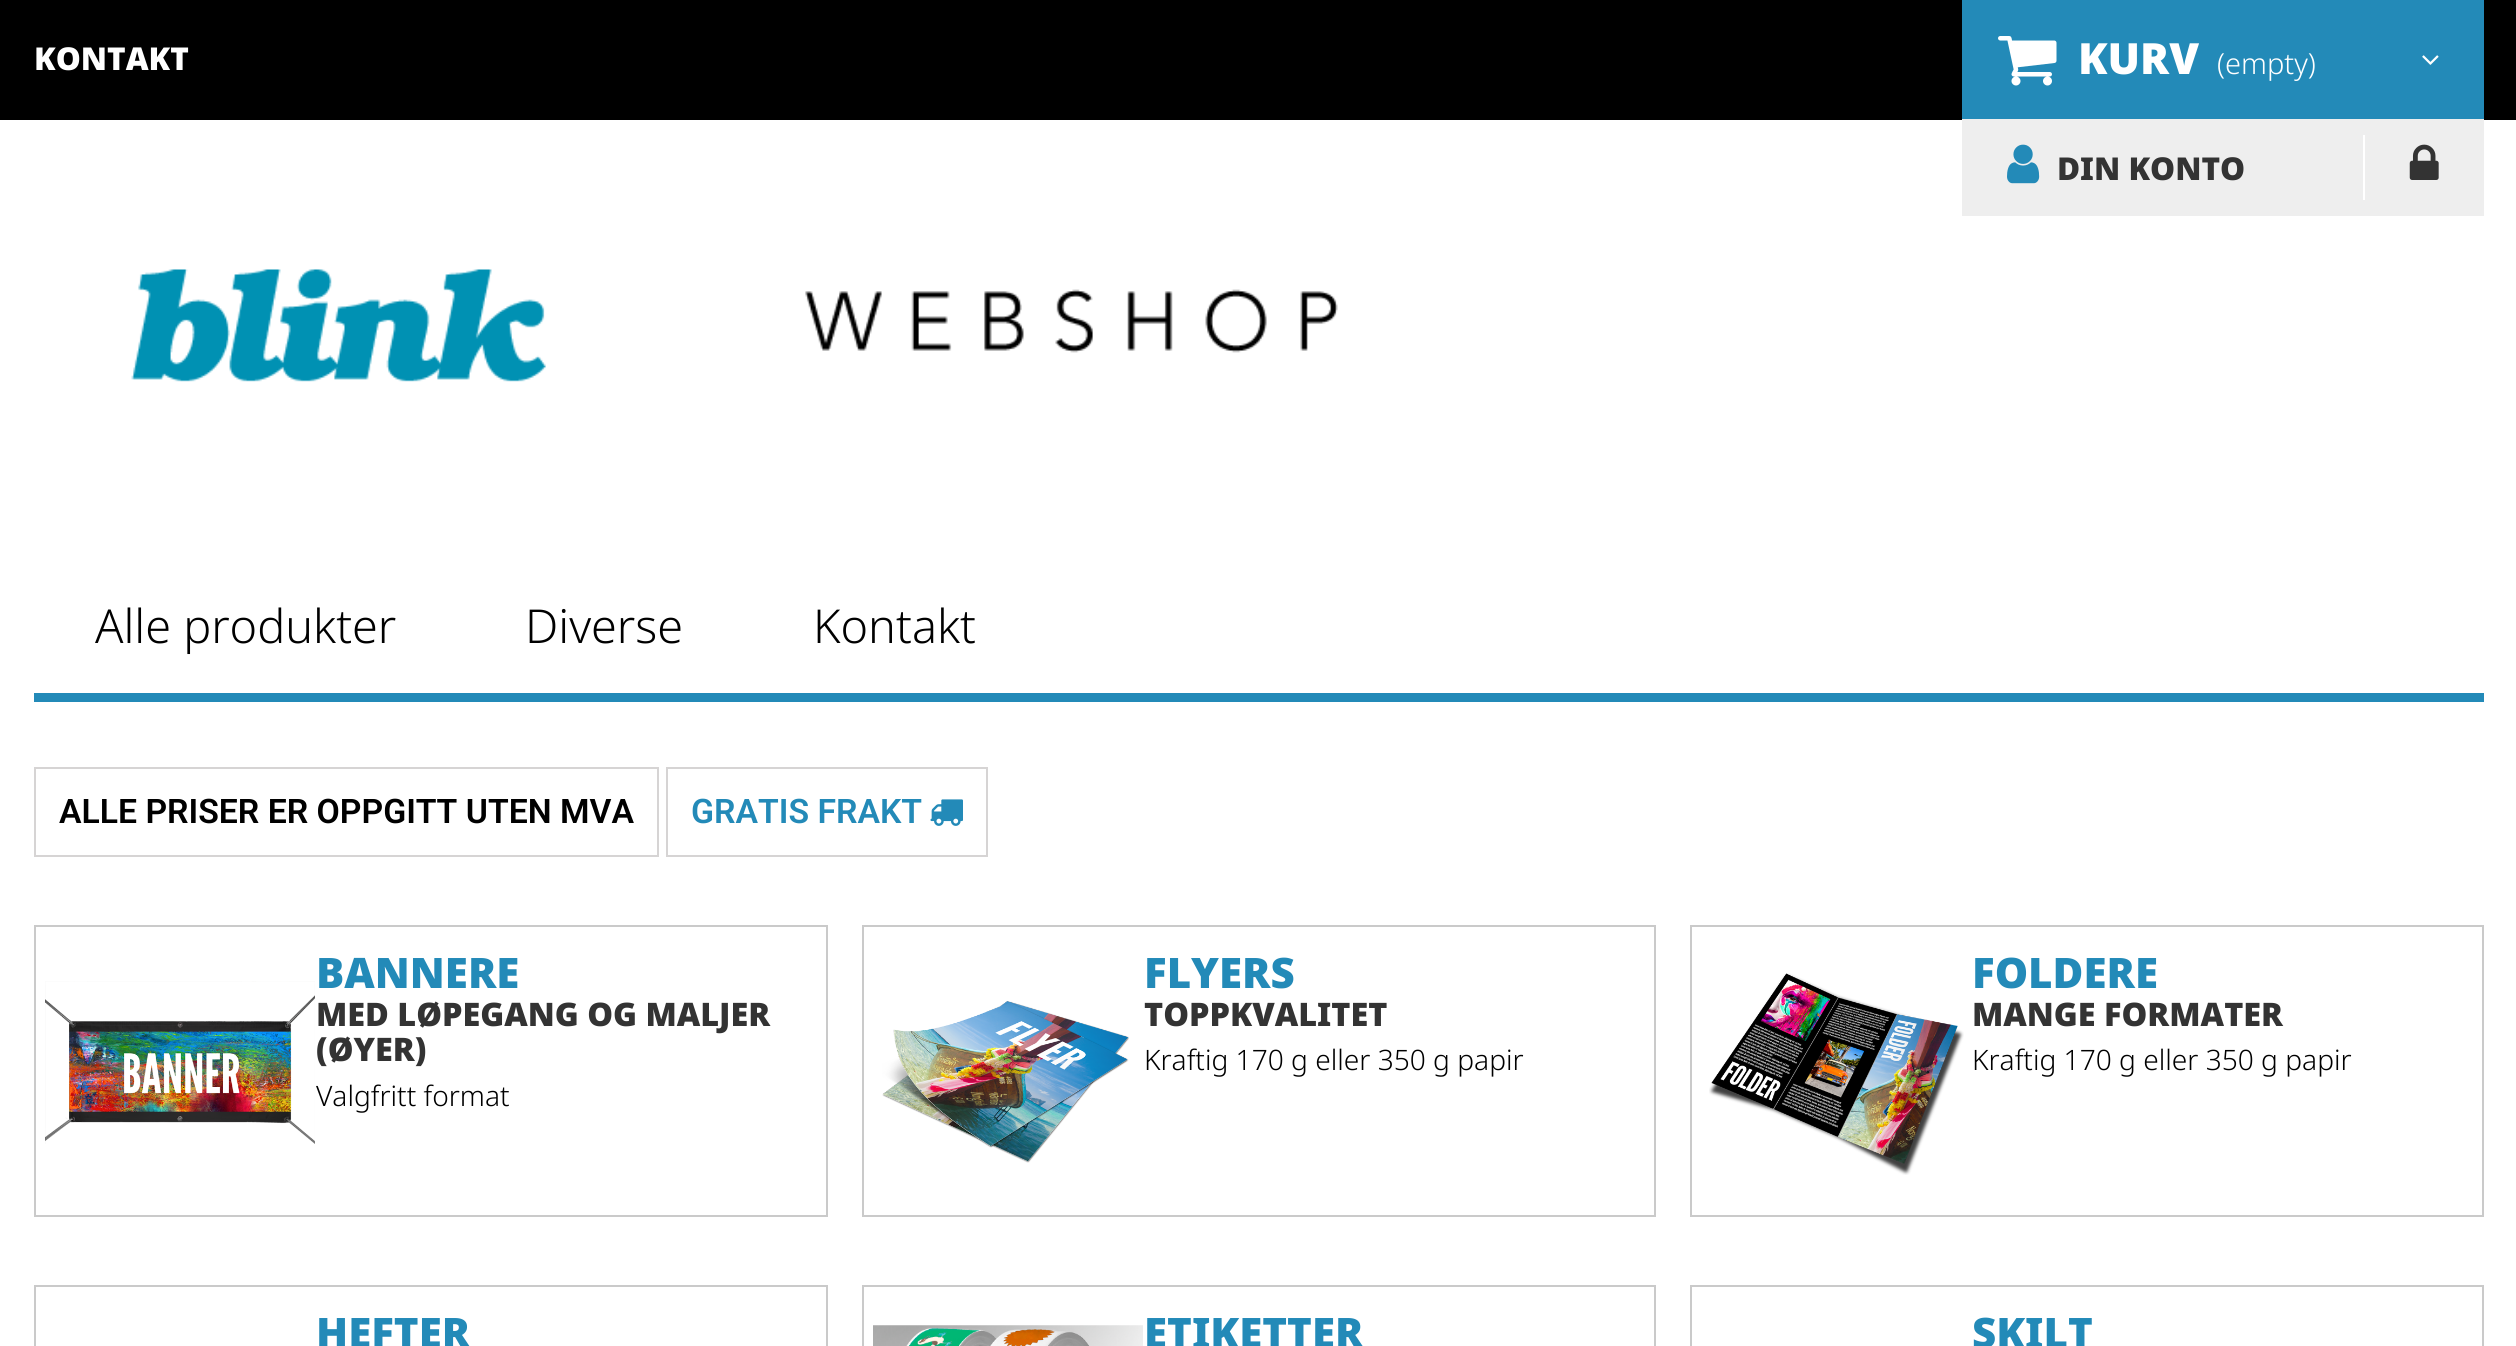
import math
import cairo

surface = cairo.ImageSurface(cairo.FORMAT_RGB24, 2516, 1346)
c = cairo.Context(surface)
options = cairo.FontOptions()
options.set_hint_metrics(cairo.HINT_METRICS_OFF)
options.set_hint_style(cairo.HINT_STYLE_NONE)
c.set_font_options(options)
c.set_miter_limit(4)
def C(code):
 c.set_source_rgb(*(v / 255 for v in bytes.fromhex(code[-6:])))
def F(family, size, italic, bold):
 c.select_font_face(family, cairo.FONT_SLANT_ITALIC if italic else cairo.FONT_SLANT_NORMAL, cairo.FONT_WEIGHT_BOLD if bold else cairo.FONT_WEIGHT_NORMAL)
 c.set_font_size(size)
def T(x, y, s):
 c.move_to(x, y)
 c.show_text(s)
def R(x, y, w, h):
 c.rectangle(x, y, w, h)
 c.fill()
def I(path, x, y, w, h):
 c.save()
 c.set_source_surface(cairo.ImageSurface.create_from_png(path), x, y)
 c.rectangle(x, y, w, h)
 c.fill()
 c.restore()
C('ffffff')
c.paint()
C('000000')
R(0,0,2516,120)
F('Noto Sans Black',31.5,0,0)
C('ffffff')
T(34,70,'KONTAKT')
C('238ab8')
R(1962,0,522,119)
I('1.png',1998,36,59,50)
F('Noto Sans Black',43,0,0)
C('ffffff')
T(2078,74,'KURV')
F('Noto Sans Light',29,0,0)
T(2217,74,'(empty)')
I('2.png',2422,55,17,10)
C('eeeeee')
R(1962,119,522,97)
I('3.png',2007,144,33,40)
F('Noto Sans Black',31.5,0,0)
C('333333')
T(2057,180,'DIN KONTO')
C('ffffff')
R(2363,135,2,65)
I('4.png',2409,144,30,36)
I('5.png',131,269,1207,113)
C('238ab8')
R(34,693,2450,9)
F('Noto Sans Light',46.75,0,0)
C('000000')
T(95,643,'Alle produkter')
T(525,643,'Diverse')
T(813,643,'Kontakt')
c.rectangle(35,768,623,88)
C('d6d4d4')
c.stroke()
F('Roboto SemiBold',33.75,0,0)
C('000000')
T(59,823,'ALLE PRISER ER OPPGITT UTEN MVA')
c.rectangle(667,768,320,88)
C('d6d4d4')
c.stroke()
C('238ab8')
T(691,823,'GRATIS FRAKT')
I('6.png',930,799,33,27)
I('7.png',45,981,270,163)
c.rectangle(35,926,792,290)
C('cacaca')
c.stroke()
F('Noto Sans Black',42,0,0)
C('238ab8')
T(316,988,'BANNERE')
F('Noto Sans Black',32.4,0,0)
C('333333')
T(316,1026,'MED LØPEGANG OG MALJER')
T(316,1061,'(ØYER)')
F('Noto Sans Light',28.1,0,0)
C('000000')
T(316,1106,'Valgfritt format')
I('8.png',882,1001,247,162)
c.rectangle(863,926,792,290)
C('cacaca')
c.stroke()
F('Noto Sans Black',42,0,0)
C('238ab8')
T(1144,988,'FLYERS')
F('Noto Sans Black',32.4,0,0)
C('333333')
T(1144,1026,'TOPPKVALITET')
F('Noto Sans Light',28.1,0,0)
C('000000')
T(1144,1070,'Kraftig 170 g eller 350 g papir')
I('9.png',1709,973,255,202)
c.rectangle(1691,926,792,290)
C('cacaca')
c.stroke()
F('Noto Sans Black',42,0,0)
C('238ab8')
T(1972,988,'FOLDERE')
F('Noto Sans Black',32.4,0,0)
C('333333')
T(1972,1026,'MANGE FORMATER')
F('Noto Sans Light',28.1,0,0)
C('000000')
T(1972,1070,'Kraftig 170 g eller 350 g papir')
c.rectangle(35,1286,792,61)
C('cacaca')
c.stroke()
F('Noto Sans Black',42,0,0)
C('238ab8')
T(316,1348,'HEFTER')
I('10.png',873,1325,270,21)
c.rectangle(863,1286,792,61)
C('cacaca')
c.stroke()
C('238ab8')
T(1144,1348,'ETIKETTER')
c.rectangle(1691,1286,792,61)
C('cacaca')
c.stroke()
C('238ab8')
T(1972,1348,'SKILT')
surface.write_to_png('o.png')
